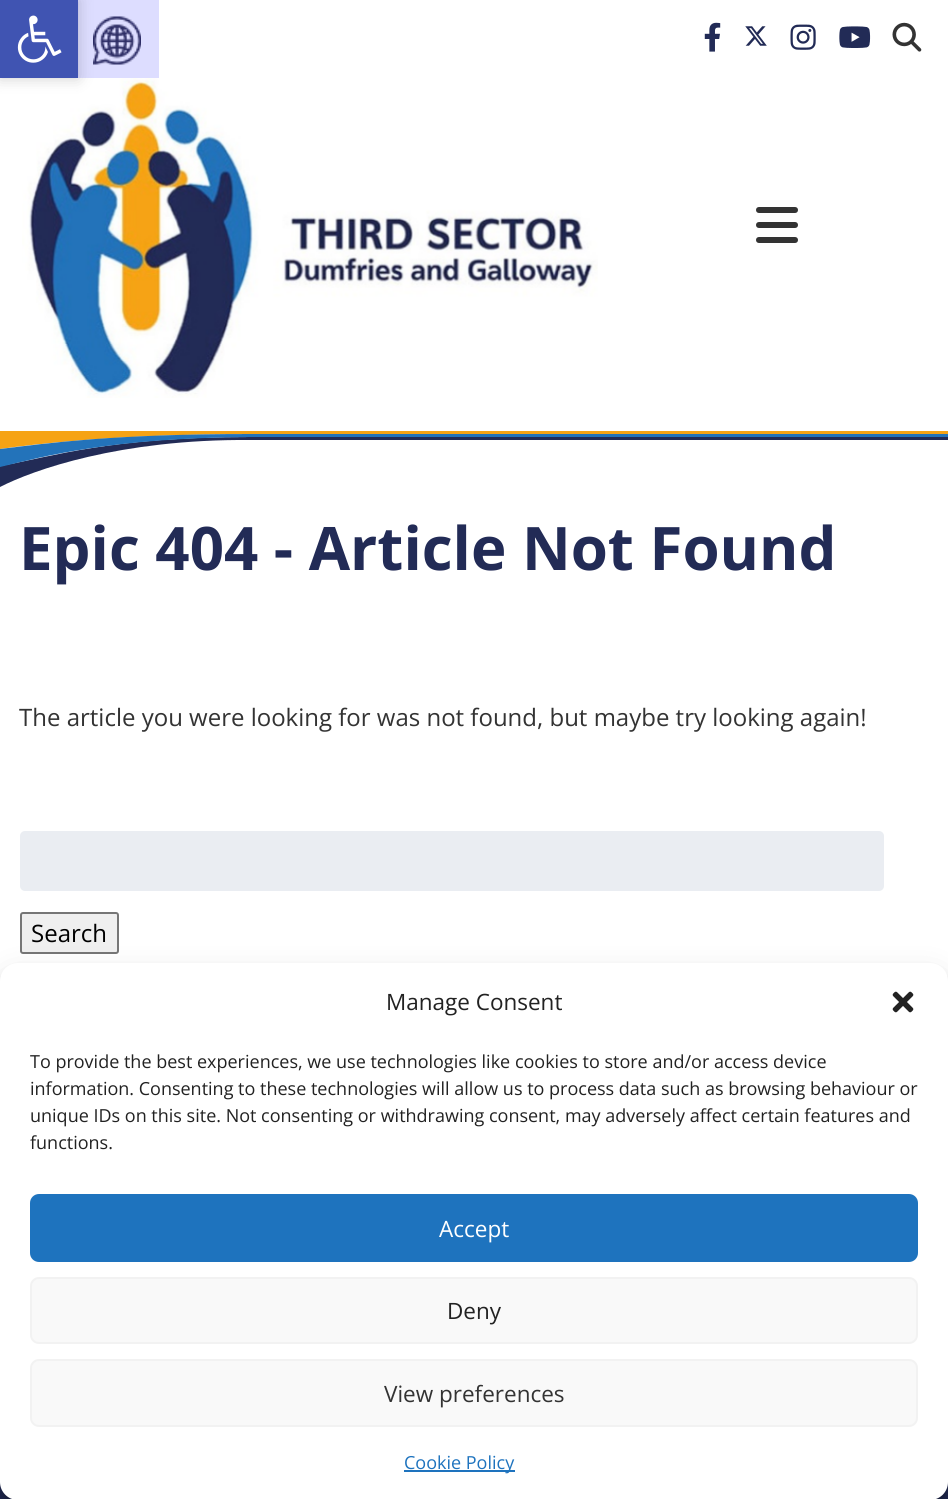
import math
import cairo

surface = cairo.ImageSurface(cairo.FORMAT_RGB24, 948, 1499)
c = cairo.Context(surface)
options = cairo.FontOptions()
options.set_hint_metrics(cairo.HINT_METRICS_OFF)
options.set_hint_style(cairo.HINT_STYLE_NONE)
c.set_font_options(options)
c.set_miter_limit(4)
def C(code):
 c.set_source_rgb(*(v / 255 for v in bytes.fromhex(code[-6:])))
def F(family, size, italic, bold):
 c.select_font_face(family, cairo.FONT_SLANT_ITALIC if italic else cairo.FONT_SLANT_NORMAL, cairo.FONT_WEIGHT_BOLD if bold else cairo.FONT_WEIGHT_NORMAL)
 c.set_font_size(size)
def T(x, y, s):
 c.move_to(x, y)
 c.show_text(s)
def R(x, y, w, h):
 c.rectangle(x, y, w, h)
 c.fill()
def Q(x, y, w, h, r):
 c.new_sub_path()
 for i, (u, v) in enumerate([(x + w - r, y + h - r), (x + r, y + h - r), (x + r, y + r), (x + w - r, y + r)]):
  c.arc(u, v, r, i * math.pi / 2, (i + 1) * math.pi / 2)
 c.close_path()
def S(x, y, w, h, r, blur, alpha):
 c.push_group_with_content(cairo.CONTENT_ALPHA)
 c.set_operator(cairo.OPERATOR_SOURCE)
 for i in range(15, -16, -2):
  e = blur * i / 6
  if min(w, h) + 2 * e > 0:
   c.set_source_rgba(0, 0, 0, alpha * math.erfc((i - 1) / 8.5) / 2)
   Q(x - e, y - e, w + 2 * e, h + 2 * e, max(0, min(r + e + blur * .6, min(w, h) / 2 + e)))
   c.fill()
 c.mask(c.pop_group())
def I(path, x, y, w, h):
 c.save()
 c.set_source_surface(cairo.ImageSurface.create_from_png(path), x, y)
 c.rectangle(x, y, w, h)
 c.fill()
 c.restore()
C('ffffff')
c.paint()
I('8.png',22,76,576,322)
C('ddddff')
R(78,0,81,78)
I('2.png',93,16,48,49)
C('000000')
S(0,0,78,78,0,7.5,.2)
C('4054b2')
R(0,0,78,78)
I('1.png',17,15,45,48)
I('3.png',704,22,17,30)
I('4.png',745,26,22,20)
I('5.png',790,24,26,26)
I('6.png',839,26,32,22)
I('7.png',892,22,30,30)
I('9.png',756,207,42,36)
C('f6a315')
c.set_fill_rule(cairo.FILL_RULE_EVEN_ODD)
c.new_path()
c.move_to(0,449)
c.curve_to(35,444,118,434,258,434)
c.line_to(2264,434)
c.line_to(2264,431)
c.line_to(0,431)
c.close_path()
c.fill()
C('222b56')
c.new_path()
c.move_to(0,487)
c.curve_to(33,470,120,439,250,440)
c.line_to(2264,440)
c.line_to(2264,437)
c.line_to(250,437)
c.curve_to(111,437,55,456,0,466)
c.close_path()
c.fill()
C('2373ba')
c.new_path()
c.move_to(0,467)
c.curve_to(45,456,112,438,250,437)
c.line_to(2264,437)
c.line_to(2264,434)
c.line_to(250,434)
c.curve_to(113,434,49,443,0,449)
c.close_path()
c.fill()
F('Open Sans',60,0,1)
C('222b56')
T(19,570,'Epic 404 - Article Not Found')
F('Open Sans',24,0,0)
C('333333')
T(19,726,'The article you were looking for was not found, but maybe try looking again!')
C('eaedf2')
Q(20,831,864,60,5)
c.fill()
C('efefef')
Q(21,913,97,40,2)
c.fill_preserve()
C('767676')
c.stroke()
C('000000')
T(31,942,'Search')
C('222b56')
R(0,1482,948,17)
C('000000')
S(0,972,948,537,18,4.5,.23)
S(0,978,948,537,18,15,.19)
C('ffffff')
Q(0,963,948,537,18)
c.fill()
F('Open Sans',22.5,0,0)
C('222222')
T(386,1010,'Manage Consent')
I('10.png',892,991,22,22)
F('Open Sans',18,0,0)
T(30,1068,'To provide the best experiences, we use technologies like cookies to store and/or access device')
T(30,1095,'information. Consenting to these technologies will allow us to process data such as browsing behaviour or')
T(30,1122,'unique IDs on this site. Not consenting or withdrawing consent, may adversely affect certain features and')
T(30,1149,'functions.')
C('1e73be')
Q(31,1195,886,66,8)
c.fill_preserve()
c.stroke()
F('Open Sans',22.5,0,0)
C('ffffff')
T(439,1237,'Accept')
C('f9f9f9')
Q(31,1278,886,65,8)
c.fill_preserve()
C('f2f2f2')
c.stroke()
C('222222')
T(447,1319,'Deny')
C('f9f9f9')
Q(31,1360,886,66,8)
c.fill_preserve()
C('f2f2f2')
c.stroke()
C('333333')
T(384,1402,'View preferences')
C('1e73be')
R(404,1470,111,2)
F('Open Sans',18,0,0)
T(404,1469,'Cookie Policy')
surface.write_to_png('o.png')
